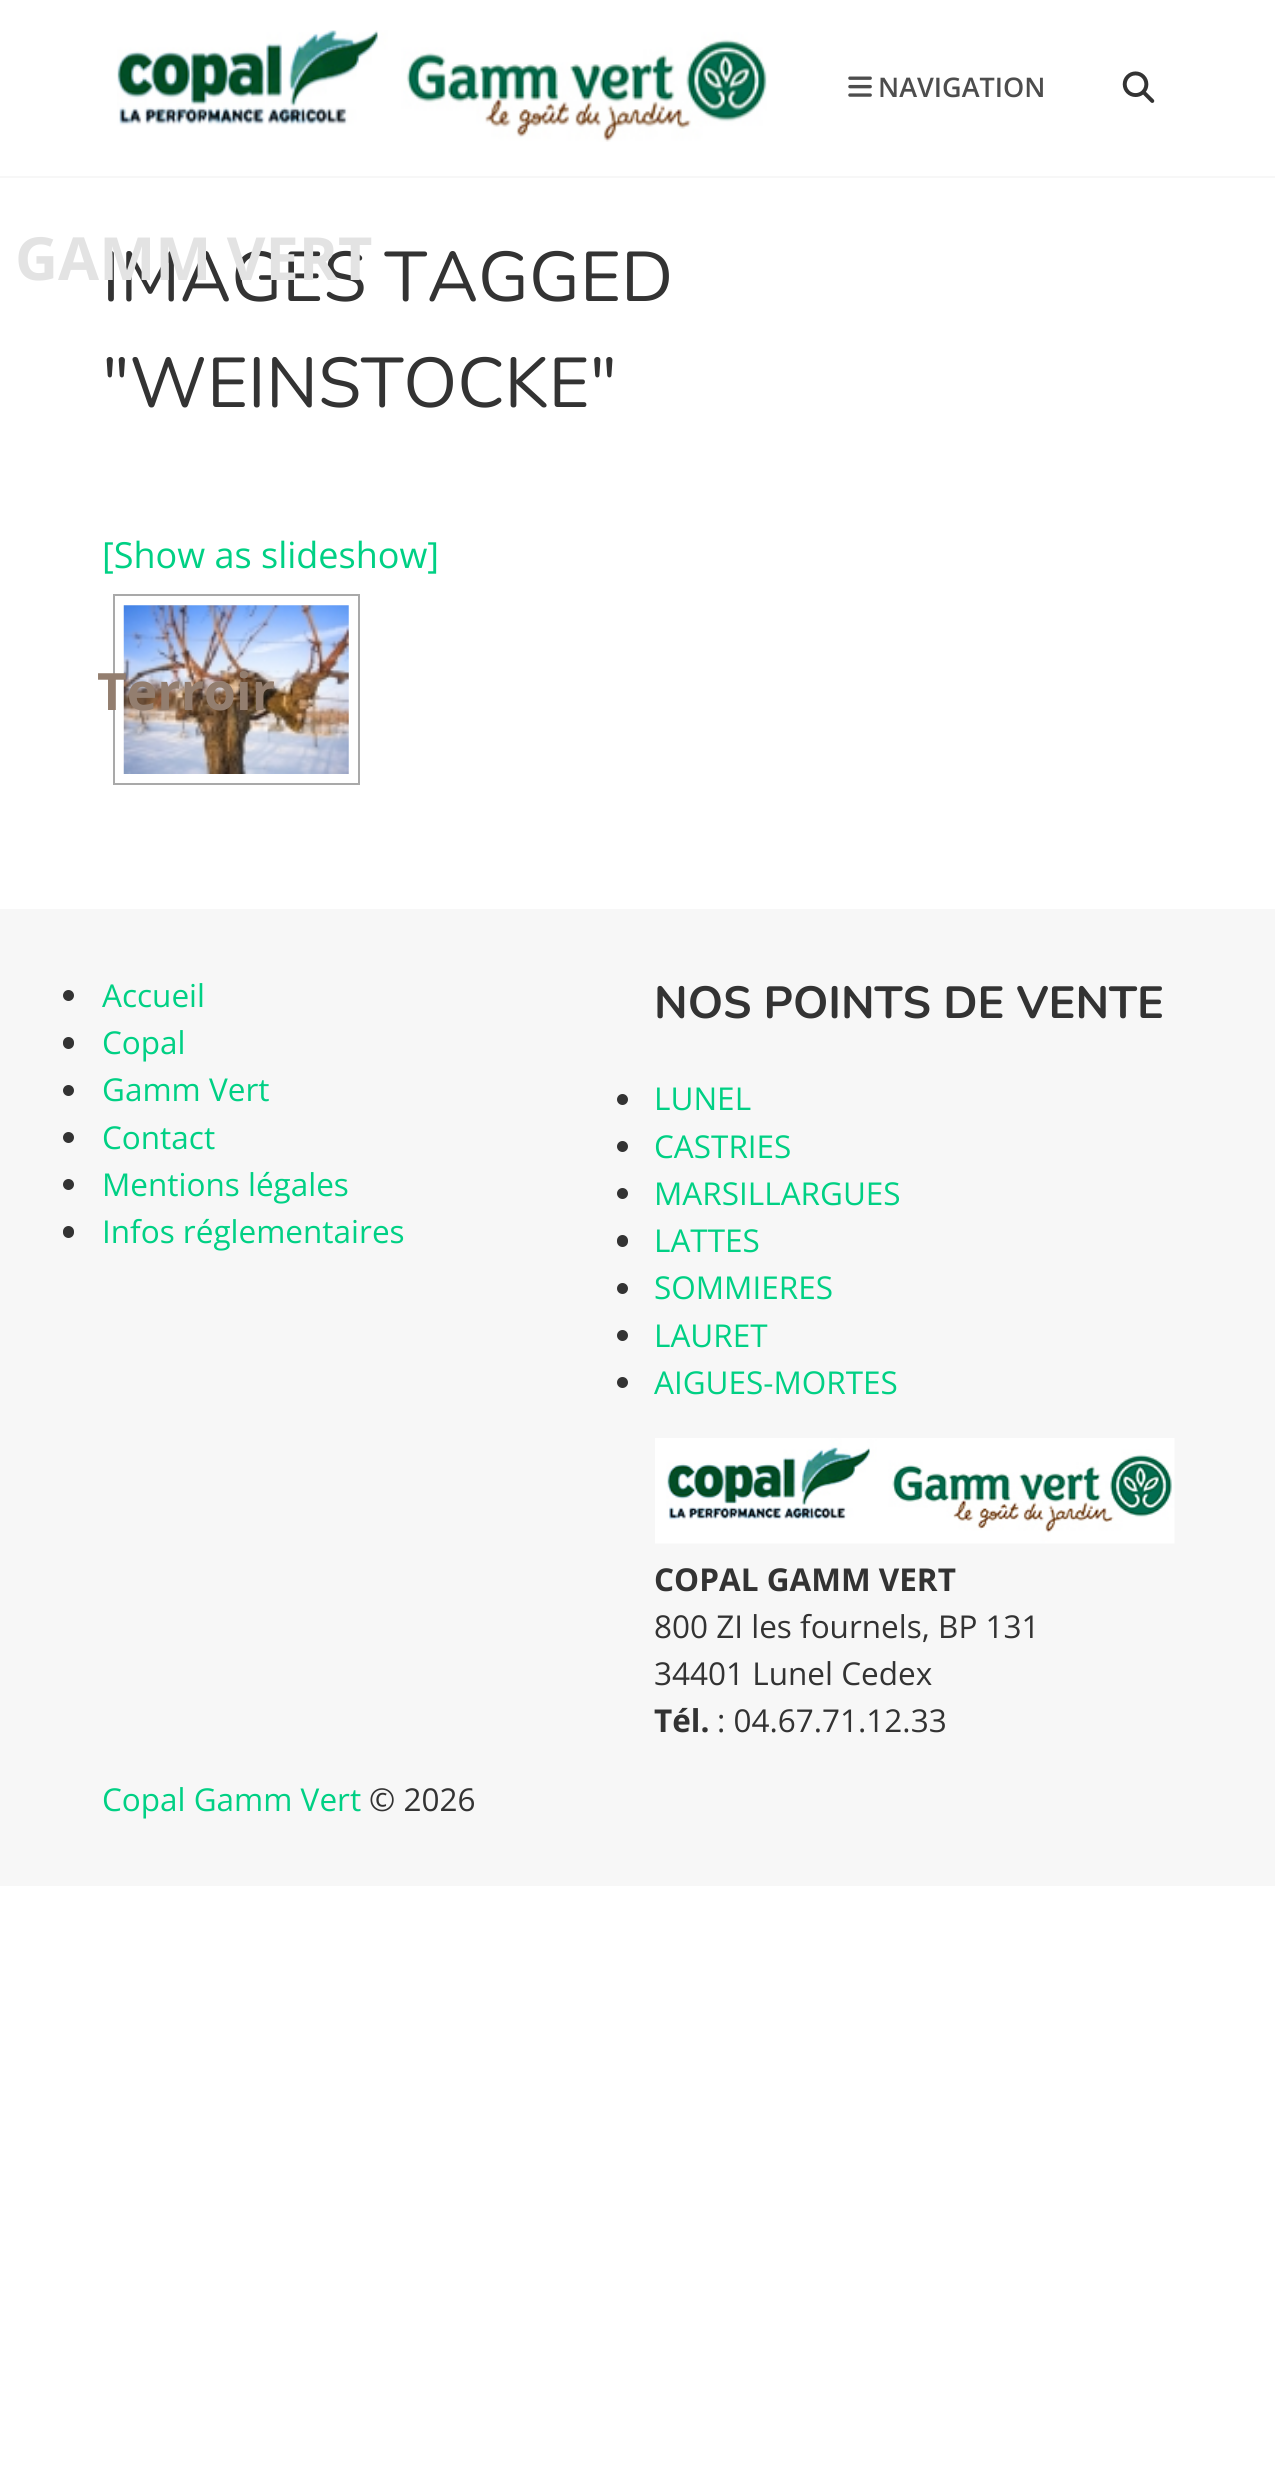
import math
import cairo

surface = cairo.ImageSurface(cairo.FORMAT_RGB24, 1275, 2468)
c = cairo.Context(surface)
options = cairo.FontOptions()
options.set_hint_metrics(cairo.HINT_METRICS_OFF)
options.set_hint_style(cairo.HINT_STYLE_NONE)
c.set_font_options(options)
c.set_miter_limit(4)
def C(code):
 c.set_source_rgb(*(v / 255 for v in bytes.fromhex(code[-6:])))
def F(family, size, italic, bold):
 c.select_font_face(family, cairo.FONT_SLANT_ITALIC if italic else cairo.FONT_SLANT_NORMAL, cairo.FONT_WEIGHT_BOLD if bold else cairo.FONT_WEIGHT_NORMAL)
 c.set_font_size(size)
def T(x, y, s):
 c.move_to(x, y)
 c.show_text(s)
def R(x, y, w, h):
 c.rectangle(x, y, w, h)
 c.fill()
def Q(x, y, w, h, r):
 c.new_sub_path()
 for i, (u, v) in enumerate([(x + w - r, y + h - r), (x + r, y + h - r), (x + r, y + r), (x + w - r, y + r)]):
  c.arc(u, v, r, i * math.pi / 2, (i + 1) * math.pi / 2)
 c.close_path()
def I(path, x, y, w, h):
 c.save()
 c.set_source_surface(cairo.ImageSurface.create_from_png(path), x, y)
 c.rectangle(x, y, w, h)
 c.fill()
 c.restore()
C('ffffff')
c.paint()
C('f7f7f7')
R(0,176,1275,2)
I('1.png',117,30,650,112)
I('2.png',848,76,24,21)
F('Open Sans SemiBold',27,0,0)
C('4d4d4d')
T(878,97,'NAVIGATION')
I('3.png',1122,71,33,32)
F('Nunito',70.25,0,0)
C('333333')
T(102,301,'IMAGES TAGGED')
F('Open Sans',59.5,0,1)
C('e3e3e3')
T(15,280,'GAMM VERT')
c.rectangle(114,595,245,189)
C('a9a9a9')
c.stroke()
I('4.png',123,605,226,169)
F('Open Sans',51.5,0,1)
C('937e6f')
T(97,710,'Terroir')
F('Nunito',70.25,0,0)
C('333333')
T(102,407,'"WEINSTOCKE"')
F('Open Sans',36,0,0)
C('00d084')
T(102,568,'[Show as slideshow]')
C('f7f7f7')
R(0,909,1275,977)
C('333333')
c.new_path()
c.arc(68.5,995.5,5.5,0,2 * math.pi)
c.fill()
F('Open Sans',31.5,0,0)
C('00d084')
T(102,1007,'Accueil')
C('333333')
Q(63,1037,11,12,5.5)
c.fill()
C('00d084')
T(102,1054,'Copal')
C('333333')
c.new_path()
c.arc(68.5,1090.5,5.5,0,2 * math.pi)
c.fill()
C('00d084')
T(102,1101,'Gamm Vert')
C('333333')
c.new_path()
c.arc(68.5,1137.5,5.5,0,2 * math.pi)
c.fill()
C('00d084')
T(102,1149,'Contact')
C('333333')
c.new_path()
c.arc(68.5,1184.5,5.5,0,2 * math.pi)
c.fill()
C('00d084')
T(102,1196,'Mentions légales')
C('333333')
Q(63,1226,11,12,5.5)
c.fill()
C('00d084')
T(102,1243,'Infos réglementaires')
F('Nunito',45,0,1)
C('333333')
T(654,1018,'NOS POINTS DE VENTE')
c.new_path()
c.arc(622.5,1099.5,5.5,0,2 * math.pi)
c.fill()
F('Open Sans',31.5,0,0)
C('00d084')
T(654,1110,'LUNEL')
C('333333')
c.new_path()
c.arc(622.5,1146.5,5.5,0,2 * math.pi)
c.fill()
C('00d084')
T(654,1158,'CASTRIES')
C('333333')
c.new_path()
c.arc(622.5,1193.5,5.5,0,2 * math.pi)
c.fill()
C('00d084')
T(654,1205,'MARSILLARGUES')
C('333333')
Q(617,1235,11,12,5.5)
c.fill()
C('00d084')
T(654,1252,'LATTES')
C('333333')
c.new_path()
c.arc(622.5,1288.5,5.5,0,2 * math.pi)
c.fill()
C('00d084')
T(654,1299,'SOMMIERES')
C('333333')
c.new_path()
c.arc(622.5,1335.5,5.5,0,2 * math.pi)
c.fill()
C('00d084')
T(654,1347,'LAURET')
C('333333')
c.new_path()
c.arc(622.5,1382.5,5.5,0,2 * math.pi)
c.fill()
C('00d084')
T(654,1394,'AIGUES-MORTES')
I('5.png',655,1438,520,106)
F('Open Sans',31.5,0,1)
C('333333')
T(654,1591,'COPAL GAMM VERT')
F('Open Sans',31.5,0,0)
T(654,1638,'800 ZI les fournels, BP 131')
T(654,1685,'34401 Lunel Cedex')
F('Open Sans',31.5,0,1)
T(654,1732,'Tél.')
F('Open Sans',31.5,0,0)
T(717,1732,': 04.67.71.12.33')
C('00d084')
T(102,1811,'Copal Gamm Vert')
C('333333')
T(369,1811,'© 2026')
surface.write_to_png('o.png')
